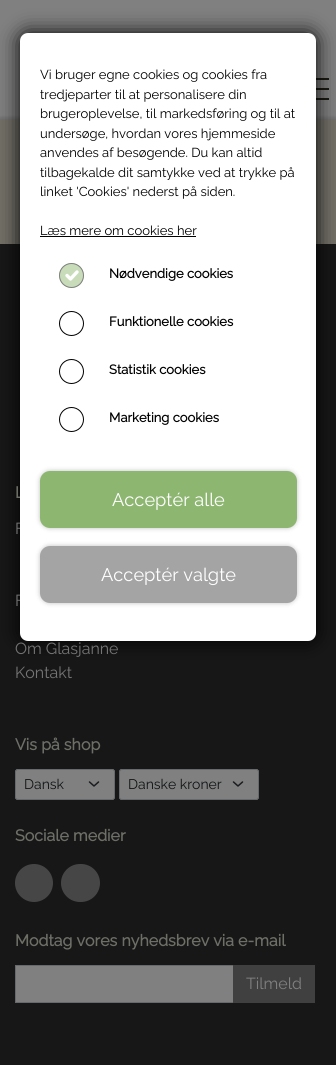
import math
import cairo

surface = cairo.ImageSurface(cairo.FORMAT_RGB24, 336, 1065)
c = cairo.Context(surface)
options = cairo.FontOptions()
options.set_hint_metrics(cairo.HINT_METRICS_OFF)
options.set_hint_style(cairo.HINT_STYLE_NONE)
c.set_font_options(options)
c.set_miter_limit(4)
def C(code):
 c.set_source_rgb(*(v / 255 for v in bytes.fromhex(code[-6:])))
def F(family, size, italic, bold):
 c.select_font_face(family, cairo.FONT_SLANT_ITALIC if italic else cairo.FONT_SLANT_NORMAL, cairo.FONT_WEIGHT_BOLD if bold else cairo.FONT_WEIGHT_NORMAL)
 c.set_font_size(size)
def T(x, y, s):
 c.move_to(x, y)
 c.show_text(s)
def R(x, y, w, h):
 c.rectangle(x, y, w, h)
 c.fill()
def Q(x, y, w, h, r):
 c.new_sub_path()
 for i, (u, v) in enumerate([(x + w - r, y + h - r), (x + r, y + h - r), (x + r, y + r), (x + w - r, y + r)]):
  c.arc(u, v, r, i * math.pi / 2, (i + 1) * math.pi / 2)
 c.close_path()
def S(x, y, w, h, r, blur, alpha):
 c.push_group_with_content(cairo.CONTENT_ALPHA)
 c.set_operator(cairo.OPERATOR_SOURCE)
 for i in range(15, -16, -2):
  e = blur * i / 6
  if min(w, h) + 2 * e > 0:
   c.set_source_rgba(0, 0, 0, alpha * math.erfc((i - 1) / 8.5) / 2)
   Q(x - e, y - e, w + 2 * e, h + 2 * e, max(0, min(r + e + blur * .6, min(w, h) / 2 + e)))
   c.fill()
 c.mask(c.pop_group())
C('171717')
c.paint()
C('808080')
R(0,0,336,115)
C('1c1a12')
R(316,78,13,2)
R(316,88,13,2)
R(316,98,13,2)
gradient = cairo.LinearGradient(168,120,168,115)
gradient.add_color_stop_rgba(0,0.427,0.427,0.427,1)
gradient.add_color_stop_rgba(1,0.502,0.502,0.502,1)
c.set_source(gradient)
R(0,115,336,5)
C('726f67')
R(0,120,336,124)
C('000000')
S(20,33,296,608,8,10,1)
F('Raleway',16,0,1)
C('6d6f67')
T(15,498,'L')
F('Raleway Thin',16,0,0)
C('757575')
T(15,534,'F')
T(15,606,'F')
C('ffffff')
Q(20,33,296,608,8)
c.fill()
F('Raleway Thin',13,0,0)
C('000000')
T(40,79,'Vi bruger egne cookies og cookies fra')
T(40,99,'tredjeparter til at personalisere din')
T(40,118,'brugeroplevelse, til markedsføring og til at')
T(40,138,'undersøge, hvordan vores hjemmeside')
T(40,157,'anvendes af besøgende. Du kan altid')
T(40,177,'tilbagekalde dit samtykke ved at trykke på')
T(40,196,'linket \'Cookies\' nederst på siden.')
T(40,235,'Læs mere om cookies her')
R(40,236,156,1)
C('c8dcba')
c.new_path()
c.arc(71.5,275.5,12.5,0,2 * math.pi)
c.fill()
c.new_path()
c.move_to(67,275.5)
c.line_to(70.5,279)
c.line_to(77,272)
C('ffffff')
c.set_line_width(3.4)
c.set_line_cap(cairo.LINE_CAP_ROUND)
c.set_line_join(cairo.LINE_JOIN_ROUND)
c.stroke()
c.arc(71.5,275.5,12,0,2 * math.pi)
C('808080')
c.set_line_width(1)
c.set_line_cap(cairo.LINE_CAP_BUTT)
c.set_line_join(cairo.LINE_JOIN_MITER)
c.stroke()
F('Raleway',13,0,1)
C('000000')
T(109,278,'Nødvendige cookies')
c.new_path()
c.arc(71.5,323.5,12,0,2 * math.pi)
c.stroke()
T(109,326,'Funktionelle cookies')
c.new_path()
c.arc(71.5,371.5,12,0,2 * math.pi)
c.stroke()
T(109,374,'Statistik cookies')
c.new_path()
c.arc(71.5,419.5,12,0,2 * math.pi)
c.stroke()
T(109,422,'Marketing cookies')
C('000000')
S(40,471,257,57,10,2.5,.25)
C('8db671')
Q(40,471,257,57,10)
c.fill()
F('Raleway Thin',18.25,0,0)
C('ffffff')
T(112,506,'Acceptér alle')
C('000000')
S(40,546,257,57,10,2.5,.25)
C('a4a4a4')
Q(40,546,257,57,10)
c.fill()
C('ffffff')
T(101,581,'Acceptér valgte')
F('Raleway Thin',16,0,0)
C('757575')
T(15,654,'Om Glasjanne')
T(15,678,'Kontakt')
F('Raleway',16,0,1)
C('6d6f67')
T(15,750,'Vis på shop')
C('808080')
Q(15,769,100,31,3)
c.fill()
c.new_path()
c.move_to(89.5,782)
c.line_to(94,786)
c.line_to(98.5,782)
C('1a1d20')
c.set_line_width(1.5)
c.set_line_cap(cairo.LINE_CAP_ROUND)
c.set_line_join(cairo.LINE_JOIN_ROUND)
c.stroke()
Q(15.5,769.5,99,30,2.5)
C('676a6d')
c.set_line_width(1)
c.set_line_cap(cairo.LINE_CAP_BUTT)
c.set_line_join(cairo.LINE_JOIN_MITER)
c.stroke()
F('Raleway Thin',14,0,0)
C('111315')
T(24,789,'Dansk')
C('808080')
Q(119,769,140,31,3)
c.fill()
c.new_path()
c.move_to(233.5,782)
c.line_to(238,786)
c.line_to(242.5,782)
C('1a1d20')
c.set_line_width(1.5)
c.set_line_cap(cairo.LINE_CAP_ROUND)
c.set_line_join(cairo.LINE_JOIN_ROUND)
c.stroke()
Q(119.5,769.5,139,30,2.5)
C('676a6d')
c.set_line_width(1)
c.set_line_cap(cairo.LINE_CAP_BUTT)
c.set_line_join(cairo.LINE_JOIN_MITER)
c.stroke()
C('111315')
T(128,789,'Danske kroner')
F('Raleway',16,0,1)
C('6d6f67')
T(15,841,'Sociale medier')
C('464646')
c.new_path()
c.arc(34,883,19,0,2 * math.pi)
c.fill()
Q(61,864,39,38,19)
c.fill()
C('6d6f67')
T(15,946,'Modtag vores nyhedsbrev via e-mail')
C('808080')
c.rectangle(15.5,965.5,218,37)
c.fill_preserve()
C('676a6d')
c.stroke()
C('404040')
R(233,965,82,38)
F('Raleway Thin',16,0,0)
C('808080')
T(246,989,'Tilmeld')
surface.write_to_png('o.png')
